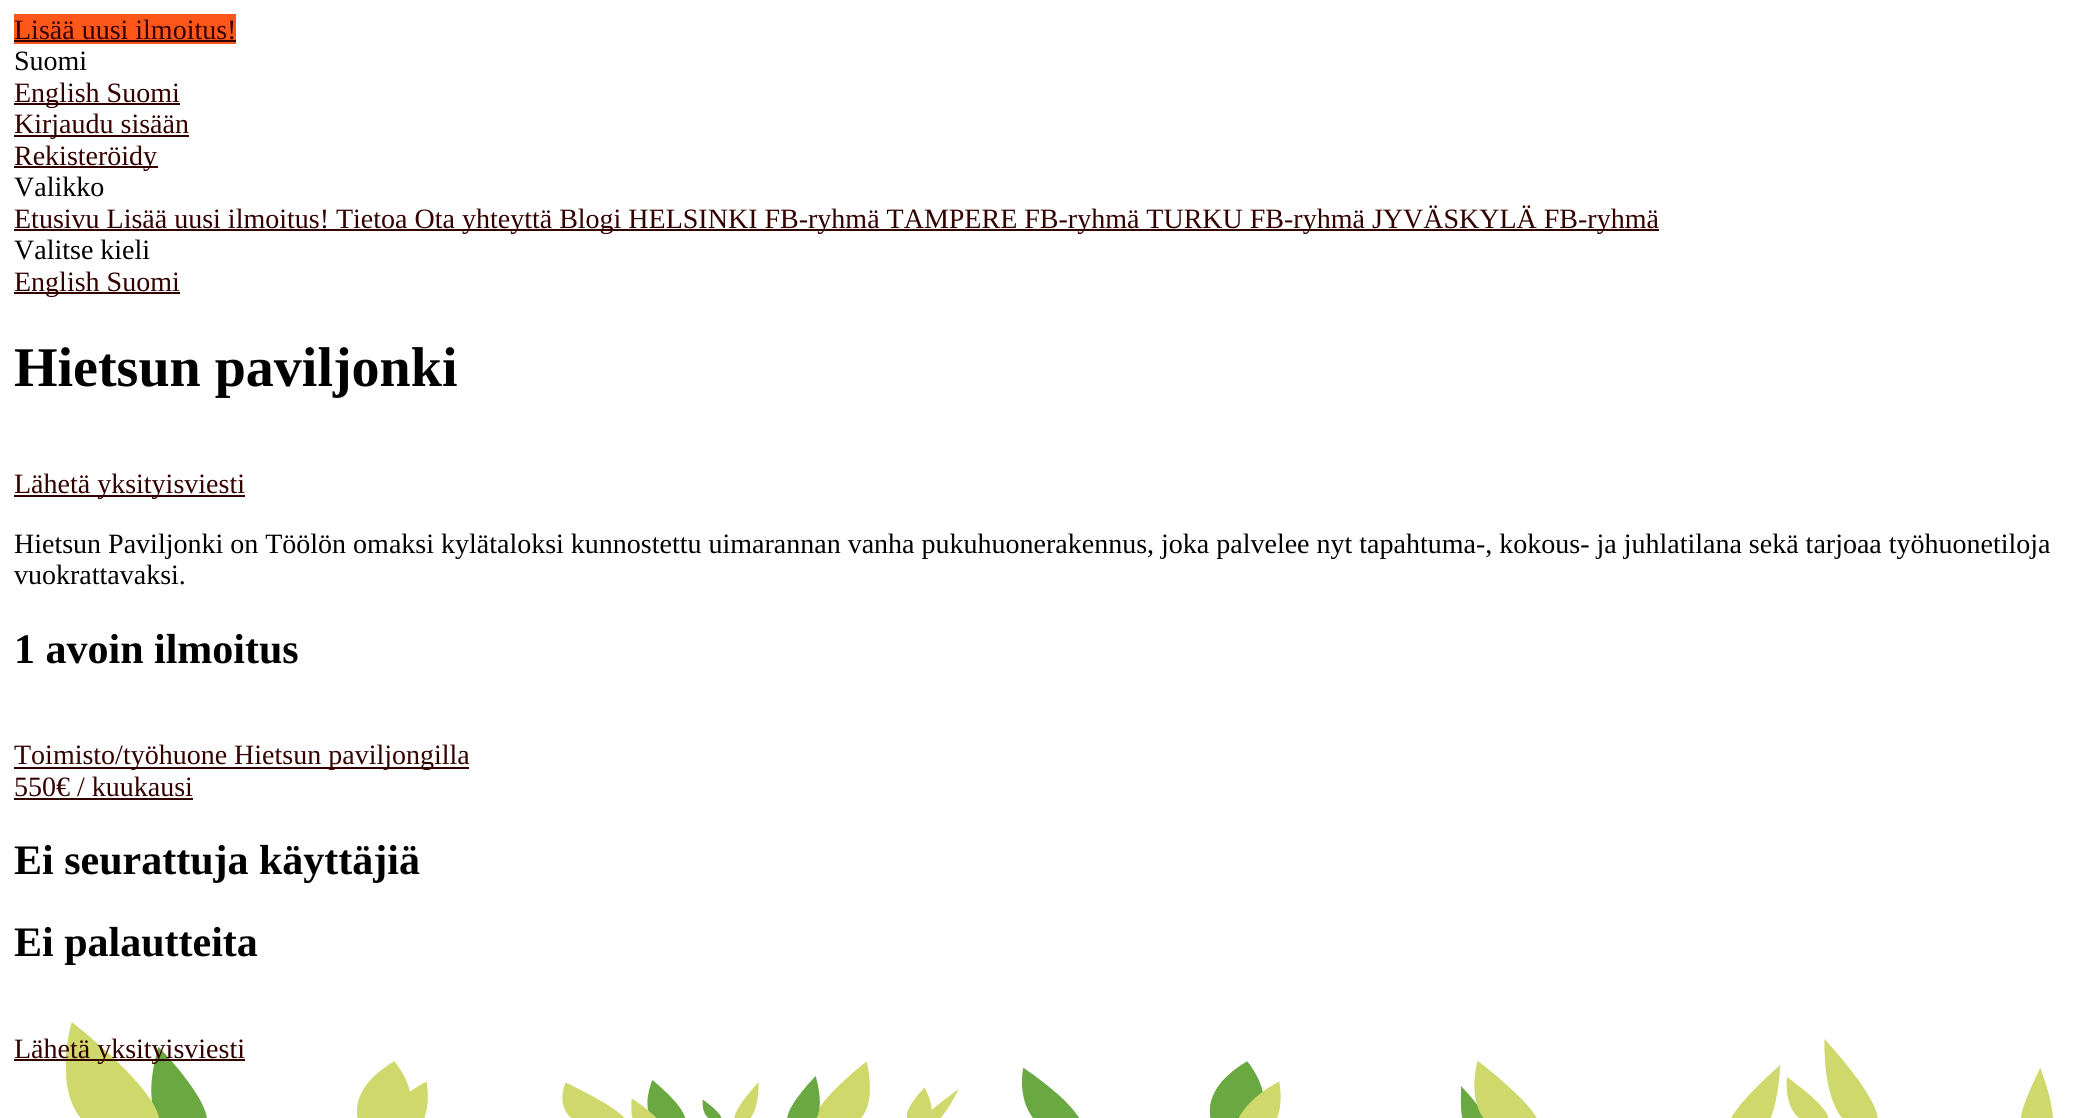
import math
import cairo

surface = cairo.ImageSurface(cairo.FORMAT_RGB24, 2098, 1118)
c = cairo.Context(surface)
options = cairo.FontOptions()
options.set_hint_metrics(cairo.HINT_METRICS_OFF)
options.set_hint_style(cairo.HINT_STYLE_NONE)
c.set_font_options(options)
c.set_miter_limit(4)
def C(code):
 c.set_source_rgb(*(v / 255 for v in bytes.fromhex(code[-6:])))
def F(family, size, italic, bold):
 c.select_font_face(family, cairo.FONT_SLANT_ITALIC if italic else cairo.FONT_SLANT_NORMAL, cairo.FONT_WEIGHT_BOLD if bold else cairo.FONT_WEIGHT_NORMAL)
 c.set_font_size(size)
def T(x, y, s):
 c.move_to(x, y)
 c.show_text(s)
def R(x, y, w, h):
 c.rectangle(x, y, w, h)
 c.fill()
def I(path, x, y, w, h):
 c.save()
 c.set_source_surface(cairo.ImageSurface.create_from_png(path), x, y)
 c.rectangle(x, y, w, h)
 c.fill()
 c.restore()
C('ffffff')
c.paint()
I('1.png',65,1022,1988,96)
C('ff5619')
R(14,14,222,30)
F('Liberation Serif',28,0,0)
C('330000')
T(14,39,'Lisää uusi ilmoitus!')
R(14,40,222,2)
C('000000')
T(14,70,'Suomi')
C('330000')
R(14,103,166,2)
T(14,102,'English Suomi')
R(14,135,175,2)
T(14,133,'Kirjaudu sisään')
R(14,166,144,2)
T(14,165,'Rekisteröidy')
C('000000')
T(14,196,'Valikko')
C('330000')
R(14,229,1645,2)
T(14,228,'Etusivu Lisää uusi ilmoitus! Tietoa Ota yhteyttä Blogi HELSINKI FB-ryhmä TAMPERE FB-ryhmä TURKU FB-ryhmä JYVÄSKYLÄ FB-ryhmä')
C('000000')
T(14,259,'Valitse kieli')
C('330000')
R(14,292,166,2)
T(14,291,'English Suomi')
F('Liberation Serif',56,0,1)
C('000000')
T(14,386,'Hietsun paviljonki')
C('330000')
R(14,495,231,2)
F('Liberation Serif',28,0,0)
T(14,493,'Lähetä yksityisviesti')
C('000000')
T(14,553,'Hietsun Paviljonki on Töölön omaksi kylätaloksi kunnostettu uimarannan vanha pukuhuonerakennus, joka palvelee nyt tapahtuma-, kokous- ja juhlatilana sekä tarjoaa työhuonetiloja')
T(14,584,'vuokrattavaksi.')
F('Liberation Serif',42,0,1)
T(14,663,'1 avoin ilmoitus')
C('330000')
R(14,767,455,2)
F('Liberation Serif',28,0,0)
T(14,764,'Toimisto/työhuone Hietsun paviljongilla')
T(14,796,'550€ / kuukausi')
R(14,798,179,2)
F('Liberation Serif',42,0,1)
C('000000')
T(14,874,'Ei seurattuja käyttäjiä')
T(14,956,'Ei palautteita')
C('330000')
R(14,1059,231,2)
F('Liberation Serif',28,0,0)
T(14,1058,'Lähetä yksityisviesti')
surface.write_to_png('o.png')
